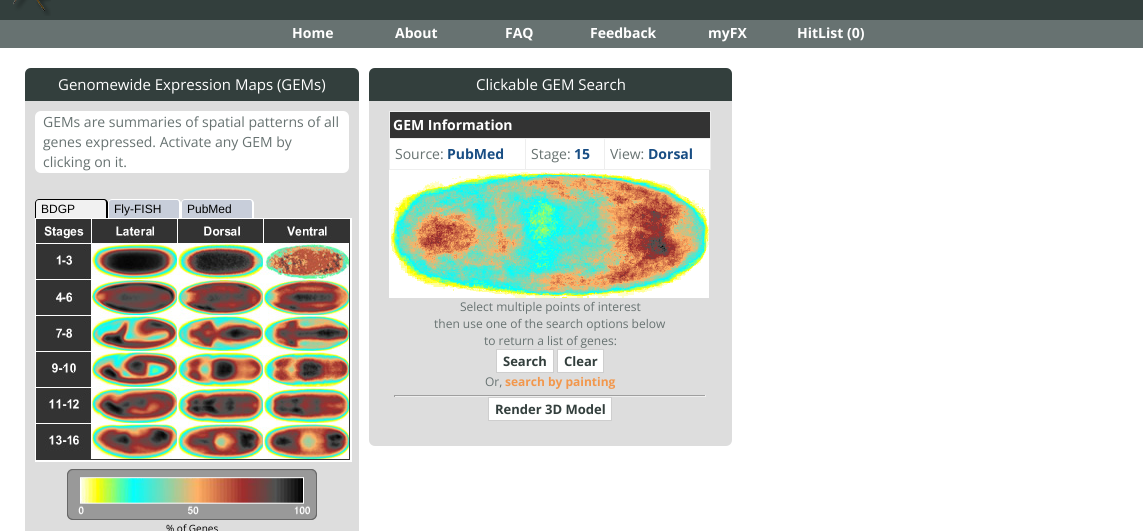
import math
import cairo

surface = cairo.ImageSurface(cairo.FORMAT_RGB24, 1143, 531)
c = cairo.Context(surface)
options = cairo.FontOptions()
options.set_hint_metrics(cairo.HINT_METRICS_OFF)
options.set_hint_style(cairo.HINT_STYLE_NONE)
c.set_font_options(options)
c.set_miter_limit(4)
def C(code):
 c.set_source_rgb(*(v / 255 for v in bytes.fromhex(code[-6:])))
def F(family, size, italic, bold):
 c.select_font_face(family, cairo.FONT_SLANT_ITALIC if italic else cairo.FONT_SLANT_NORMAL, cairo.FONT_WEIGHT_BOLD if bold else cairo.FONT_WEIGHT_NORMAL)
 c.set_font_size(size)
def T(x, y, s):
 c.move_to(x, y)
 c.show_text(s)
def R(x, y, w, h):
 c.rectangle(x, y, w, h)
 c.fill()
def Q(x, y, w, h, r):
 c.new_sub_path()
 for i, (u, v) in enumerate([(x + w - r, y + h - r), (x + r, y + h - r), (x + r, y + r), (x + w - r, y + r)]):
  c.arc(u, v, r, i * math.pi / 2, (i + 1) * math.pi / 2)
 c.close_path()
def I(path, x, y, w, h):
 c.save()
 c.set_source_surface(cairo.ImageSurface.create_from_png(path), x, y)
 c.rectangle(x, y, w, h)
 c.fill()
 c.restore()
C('ffffff')
c.paint()
C('333f3d')
R(0,0,1143,20)
I('1.png',13,0,38,16)
C('677271')
R(0,20,1143,28)
F('Open Sans',14,0,1)
C('ffffff')
T(292,38,'Home')
T(395,38,'About')
T(505,38,'FAQ')
T(590,38,'Feedback')
T(708,38,'myFX')
T(797,38,'HitList (0)')
C('dddddd')
Q(25,68,334,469,6)
c.fill()
C('333f3d')
c.new_path()
c.move_to(31,68)
c.line_to(353,68)
c.curve_to(356.5,68,359,70.5,359,74)
c.line_to(359,101)
c.line_to(25,101)
c.line_to(25,74)
c.curve_to(25,70.5,27.5,68,31,68)
c.close_path()
c.fill()
F('Open Sans',15,0,0)
C('ffffff')
T(58,90,'Genomewide Expression Maps (GEMs)')
Q(35,111,314,62,6)
c.fill()
F('Open Sans',14,0,0)
C('677271')
T(43,127,'GEMs are summaries of spatial patterns of all')
T(43,147,'genes expressed. Activate any GEM by')
T(43,167,'clicking on it.')
C('f1f1f1')
c.new_path()
c.move_to(39,199)
c.line_to(104,199)
c.curve_to(106,199,108,201,108,203)
c.line_to(108,218)
c.line_to(35,218)
c.line_to(35,203)
c.curve_to(35,201,37,199,39,199)
c.close_path()
c.fill()
C('000000')
c.set_fill_rule(cairo.FILL_RULE_EVEN_ODD)
c.new_path()
c.move_to(39,199)
c.line_to(104,199)
c.curve_to(106,199,108,201,108,203)
c.line_to(108,218)
c.line_to(35,218)
c.line_to(35,203)
c.curve_to(35,201,37,199,39,199)
c.close_path()
c.move_to(39,200)
c.line_to(104,200)
c.curve_to(105,200,106,201,106,203)
c.line_to(106,218)
c.line_to(36,218)
c.line_to(36,203)
c.curve_to(36,201,37,200,39,200)
c.close_path()
c.fill()
F('Liberation Sans',12,0,0)
T(41,213,'BDGP')
C('c8ceda')
c.new_path()
c.move_to(112,199)
c.line_to(177,199)
c.curve_to(179,199,181,201,181,203)
c.line_to(181,218)
c.line_to(108,218)
c.line_to(108,203)
c.curve_to(108,201,110,199,112,199)
c.close_path()
c.fill()
C('ffffff')
c.new_path()
c.move_to(112,199)
c.line_to(177,199)
c.curve_to(179,199,181,201,181,203)
c.line_to(181,218)
c.line_to(108,218)
c.line_to(108,203)
c.curve_to(108,201,110,199,112,199)
c.close_path()
c.move_to(112,200)
c.line_to(177,200)
c.curve_to(178,200,179,201,179,203)
c.line_to(179,218)
c.line_to(109,218)
c.line_to(109,203)
c.curve_to(109,201,110,200,112,200)
c.close_path()
c.fill()
C('000000')
T(114,213,'Fly-FISH')
C('c8ceda')
c.new_path()
c.move_to(185,199)
c.line_to(250,199)
c.curve_to(252,199,254,201,254,203)
c.line_to(254,218)
c.line_to(181,218)
c.line_to(181,203)
c.curve_to(181,201,183,199,185,199)
c.close_path()
c.fill()
C('ffffff')
c.new_path()
c.move_to(185,199)
c.line_to(250,199)
c.curve_to(252,199,254,201,254,203)
c.line_to(254,218)
c.line_to(181,218)
c.line_to(181,203)
c.curve_to(181,201,183,199,185,199)
c.close_path()
c.move_to(185,200)
c.line_to(250,200)
c.curve_to(251,200,252,201,252,203)
c.line_to(252,218)
c.line_to(182,218)
c.line_to(182,203)
c.curve_to(182,201,183,200,185,200)
c.close_path()
c.fill()
C('000000')
T(187,213,'PubMed')
C('ffffff')
R(35,218,317,1)
R(350,218,2,244)
R(35,460,317,2)
R(35,218,1,244)
I('2.png',36,219,314,241)
I('3.png',67,469,250,51)
F('Open Sans',10,0,0)
C('000000')
T(166,532,'% of Genes')
C('dddddd')
Q(369,68,363,378,6)
c.fill()
C('333f3d')
c.new_path()
c.move_to(375,68)
c.line_to(726,68)
c.curve_to(729.5,68,732,70.5,732,74)
c.line_to(732,101)
c.line_to(369,101)
c.line_to(369,74)
c.curve_to(369,70.5,371.5,68,375,68)
c.close_path()
c.fill()
F('Open Sans',15,0,0)
C('ffffff')
T(476,90,'Clickable GEM Search')
C('eeeeee')
R(389,111,322,59)
C('333333')
R(390,112,320,26)
F('Open Sans',14,0,1)
C('ffffff')
T(393,130,'GEM Information')
R(390,139,135,30)
F('Open Sans',14,0,0)
C('677271')
T(395,159,'Source:')
F('Open Sans',14,0,1)
C('194e84')
T(447,159,'PubMed')
C('ffffff')
R(526,139,78,30)
F('Open Sans',14,0,0)
C('677271')
T(531,159,'Stage:')
F('Open Sans',14,0,1)
C('194e84')
T(574,159,'15')
C('ffffff')
R(605,139,105,30)
F('Open Sans',14,0,0)
C('677271')
T(610,159,'View:')
F('Open Sans',14,0,1)
C('194e84')
T(648,159,'Dorsal')
I('4.png',389,170,320,128)
F('Open Sans',12,0,0)
C('677271')
T(460,311,'Select multiple points of interest')
T(434,328,'then use one of the search options below')
T(484,345,'to return a list of genes:')
C('ffffff')
c.rectangle(496.5,349.5,57,23)
c.fill_preserve()
C('cecece')
c.set_line_width(1)
c.stroke()
F('Open Sans',13,0,1)
C('333f3d')
T(503,366,'Search')
C('ffffff')
c.rectangle(557.5,349.5,46,23)
c.fill_preserve()
C('cecece')
c.stroke()
C('333f3d')
T(564,366,'Clear')
F('Open Sans',12,0,0)
C('677271')
T(485,386,'Or,')
F('Open Sans',12,0,1)
C('f2974c')
T(505,386,'search by painting')
C('9f9f9f')
R(394,395,312,1)
C('eeeeee')
R(705,395,1,2)
R(394,396,312,1)
C('9f9f9f')
R(394,395,1,2)
C('ffffff')
c.rectangle(488.5,397.5,123,23)
c.fill_preserve()
C('cecece')
c.stroke()
F('Open Sans',13,0,1)
C('333f3d')
T(495,414,'Render 3D Model')
surface.write_to_png('o.png')
